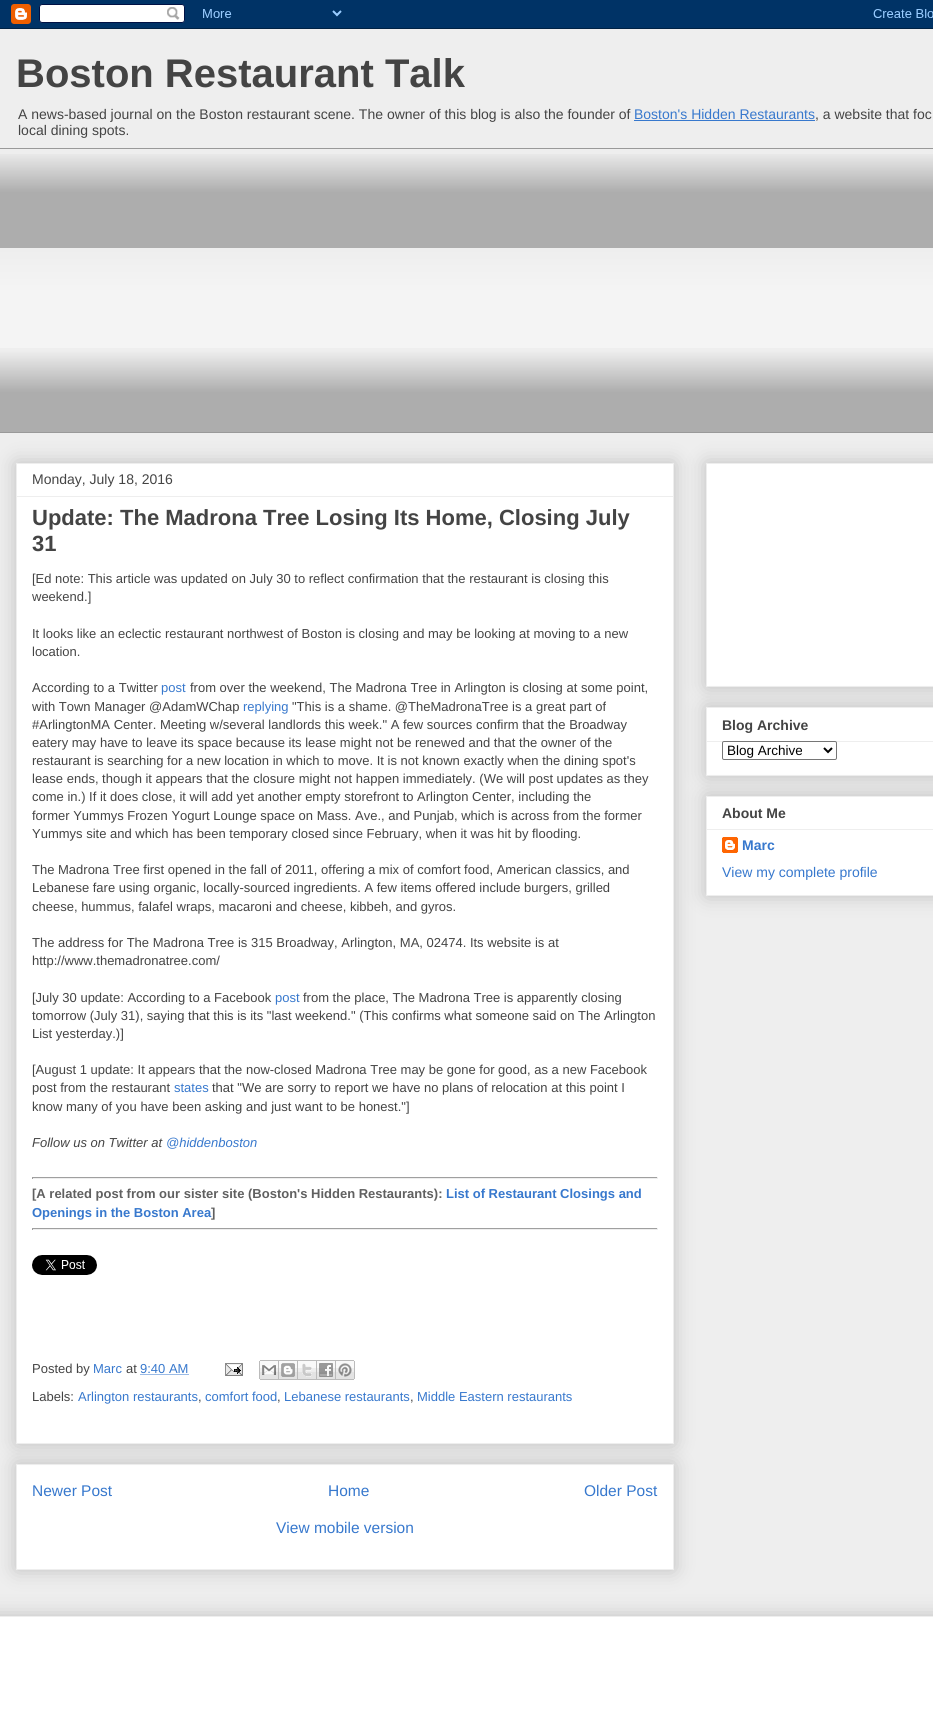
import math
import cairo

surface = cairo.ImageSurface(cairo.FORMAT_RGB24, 933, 1731)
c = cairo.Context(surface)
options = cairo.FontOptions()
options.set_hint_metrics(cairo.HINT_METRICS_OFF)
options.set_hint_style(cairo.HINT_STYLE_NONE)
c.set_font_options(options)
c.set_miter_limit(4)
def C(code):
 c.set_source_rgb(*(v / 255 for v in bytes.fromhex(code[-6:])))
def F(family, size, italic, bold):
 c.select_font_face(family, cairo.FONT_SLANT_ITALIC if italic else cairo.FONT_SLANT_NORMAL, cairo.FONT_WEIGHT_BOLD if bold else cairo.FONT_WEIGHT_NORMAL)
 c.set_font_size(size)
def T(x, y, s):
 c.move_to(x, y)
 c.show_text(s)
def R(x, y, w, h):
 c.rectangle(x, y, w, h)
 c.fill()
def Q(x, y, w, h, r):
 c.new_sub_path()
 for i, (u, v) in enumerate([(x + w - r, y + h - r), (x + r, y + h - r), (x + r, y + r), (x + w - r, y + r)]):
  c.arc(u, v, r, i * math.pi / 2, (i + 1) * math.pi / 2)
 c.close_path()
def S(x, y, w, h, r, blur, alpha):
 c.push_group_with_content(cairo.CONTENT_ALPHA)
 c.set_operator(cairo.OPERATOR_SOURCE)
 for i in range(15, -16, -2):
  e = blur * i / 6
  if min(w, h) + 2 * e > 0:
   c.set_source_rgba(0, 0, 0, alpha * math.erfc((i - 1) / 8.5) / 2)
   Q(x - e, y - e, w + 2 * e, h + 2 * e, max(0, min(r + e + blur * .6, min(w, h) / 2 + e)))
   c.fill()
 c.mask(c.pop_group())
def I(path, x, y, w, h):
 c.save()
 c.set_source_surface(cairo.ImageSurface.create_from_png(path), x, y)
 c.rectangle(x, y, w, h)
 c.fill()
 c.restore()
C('eeeeee')
c.paint()
I('1.png',0,0,933,29)
F('Liberation Sans',40,0,1)
C('444444')
T(16,87,'Boston Restaurant Talk')
F('Liberation Sans',14,0,0)
T(18,119,'A news-based journal on the Boston restaurant scene. The owner of this blog is also the founder of')
C('3778cd')
T(634,119,'Boston\'s Hidden Restaurants')
R(634,120,181,1)
C('444444')
T(815,119,', a website that foc')
T(18,135,'local dining spots.')
I('2.png',0,154,933,278)
C('999999')
R(0,148,933,1)
R(0,432,933,1)
C('000000')
S(16,1464,658,106,0,10,.2)
C('ffffff')
c.rectangle(16.5,1464.5,657,105)
c.fill_preserve()
C('eeeeee')
c.set_line_width(1)
c.stroke()
C('000000')
S(16,463,658,981,0,10,.2)
C('ffffff')
c.rectangle(16.5,463.5,657,980)
c.fill_preserve()
C('eeeeee')
c.stroke()
C('444444')
T(32,484,'Monday, July 18, 2016')
C('eeeeee')
R(17,496,656,1)
F('Liberation Sans',22,0,1)
C('444444')
T(32,525,'Update: The Madrona Tree Losing Its Home, Closing July')
T(32,551,'31')
F('Liberation Sans',13,0,0)
T(32,583,'[Ed note: This article was updated on July 30 to reflect confirmation that the restaurant is closing this')
T(32,601,'weekend.]')
T(32,638,'It looks like an eclectic restaurant northwest of Boston is closing and may be looking at moving to a new')
T(32,656,'location.')
T(32,692,'According to a Twitter')
C('3778cd')
T(161,692,'post')
C('444444')
T(190,692,'from over the weekend, The Madrona Tree in Arlington is closing at some point,')
T(32,711,'with Town Manager @AdamWChap')
C('3778cd')
T(243,711,'replying')
C('444444')
T(292,711,'"This is a shame. @TheMadronaTree is a great part of')
T(32,729,'#ArlingtonMA Center. Meeting w/several landlords this week." A few sources confirm that the Broadway')
T(32,747,'eatery may have to leave its space because its lease might not be renewed and that the owner of the')
T(32,765,'restaurant is searching for a new location in which to move. It is not known exactly when the dining spot\'s')
T(32,783,'lease ends, though it appears that the closure might not happen immediately. (We will post updates as they')
T(32,801,'come in.) If it does close, it will add yet another empty storefront to Arlington Center, including the')
T(32,820,'former Yummys Frozen Yogurt Lounge space on Mass. Ave., and Punjab, which is across from the former')
T(32,838,'Yummys site and which has been temporary closed since February, when it was hit by flooding.')
T(32,874,'The Madrona Tree first opened in the fall of 2011, offering a mix of comfort food, American classics, and')
T(32,892,'Lebanese fare using organic, locally-sourced ingredients. A few items offered include burgers, grilled')
T(32,911,'cheese, hummus, falafel wraps, macaroni and cheese, kibbeh, and gyros.')
T(32,947,'The address for The Madrona Tree is 315 Broadway, Arlington, MA, 02474. Its website is at')
T(32,965,'http://www.themadronatree.com/')
T(32,1002,'[July 30 update: According to a Facebook')
C('3778cd')
T(275,1002,'post')
C('444444')
T(303,1002,'from the place, The Madrona Tree is apparently closing')
T(32,1020,'tomorrow (July 31), saying that this is its "last weekend." (This confirms what someone said on The Arlington')
T(32,1038,'List yesterday.)]')
T(32,1074,'[August 1 update: It appears that the now-closed Madrona Tree may be gone for good, as a new Facebook')
T(32,1092,'post from the restaurant')
C('3778cd')
T(174,1092,'states')
C('444444')
T(212,1092,'that "We are sorry to report we have no plans of relocation at this point I')
T(32,1111,'know many of you have been asking and just want to be honest."]')
F('Liberation Sans',13,1,0)
T(32,1147,'Follow us on Twitter at')
C('3778cd')
T(166,1147,'@hiddenboston')
C('9f9f9f')
R(32,1177,626,1)
C('eeeeee')
R(657,1177,1,2)
R(32,1178,626,1)
C('9f9f9f')
R(32,1177,1,2)
F('Liberation Sans',13,0,1)
C('606060')
T(32,1198,'[A related post from our sister site (Boston\'s Hidden Restaurants):')
C('3778cd')
T(446,1198,'List of Restaurant Closings and')
T(32,1217,'Openings in the Boston Area')
C('606060')
T(211,1217,']')
C('9f9f9f')
R(32,1228,626,1)
C('eeeeee')
R(657,1228,1,2)
R(32,1229,626,1)
C('9f9f9f')
R(32,1228,1,2)
I('3.png',32,1255,65,20)
F('Liberation Sans',13,0,0)
C('444444')
T(32,1373,'Posted by')
C('3778cd')
T(93,1373,'Marc')
C('444444')
T(126,1373,'at')
C('3778cd')
T(140,1373,'9:40 AM')
c.new_path()
c.move_to(140.5,1374.5)
c.line_to(189,1374.5)
c.set_dash([1,1])
c.stroke()
I('4.png',225,1363,18,13)
I('5.png',259,1360,20,20)
I('6.png',279,1360,19,20)
I('7.png',298,1360,19,20)
I('8.png',317,1360,19,20)
I('9.png',336,1360,19,20)
C('444444')
T(32,1401,'Labels:')
C('3778cd')
T(78,1401,'Arlington restaurants')
C('444444')
T(198,1401,',')
C('3778cd')
T(205,1401,'comfort food')
C('444444')
T(277,1401,',')
C('3778cd')
T(284,1401,'Lebanese restaurants')
C('444444')
T(410,1401,',')
C('3778cd')
T(417,1401,'Middle Eastern restaurants')
F('Liberation Sans',15.5,0,0)
T(32,1496,'Newer Post')
T(328,1496,'Home')
T(584,1496,'Older Post')
T(276,1533,'View mobile version')
C('000000')
S(706,463,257,224,0,10,.2)
C('ffffff')
c.rectangle(706.5,463.5,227,223)
c.fill_preserve()
C('eeeeee')
c.set_dash([])
c.stroke()
C('000000')
S(706,707,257,69,0,10,.2)
C('ffffff')
c.rectangle(706.5,707.5,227,68)
c.fill_preserve()
C('eeeeee')
c.stroke()
F('Liberation Sans',14,0,1)
C('444444')
T(722,730,'Blog Archive')
C('eeeeee')
R(707,741,226,1)
C('ffffff')
Q(722.5,741.5,114,18,1.5)
c.fill_preserve()
C('767676')
c.stroke()
c.new_path()
c.move_to(824,748)
c.line_to(828,752)
c.line_to(832,748)
C('000000')
c.set_line_width(2)
c.stroke()
F('Liberation Sans',13.5,0,0)
T(727,755,'Blog Archive')
C('000000')
S(706,796,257,100,0,10,.2)
C('ffffff')
c.rectangle(706.5,796.5,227,99)
c.fill_preserve()
C('eeeeee')
c.set_line_width(1)
c.stroke()
F('Liberation Sans',14,0,1)
C('444444')
T(722,818,'About Me')
C('eeeeee')
R(707,829,226,1)
I('10.png',722,837,16,16)
C('3778cd')
T(742,850,'Marc')
F('Liberation Sans',14,0,0)
T(722,877,'View my complete profile')
C('000000')
S(-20,1616,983,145,0,10,.2)
C('ffffff')
R(0,1617,933,114)
C('eeeeee')
R(0,1616,933,1)
surface.write_to_png('o.png')
